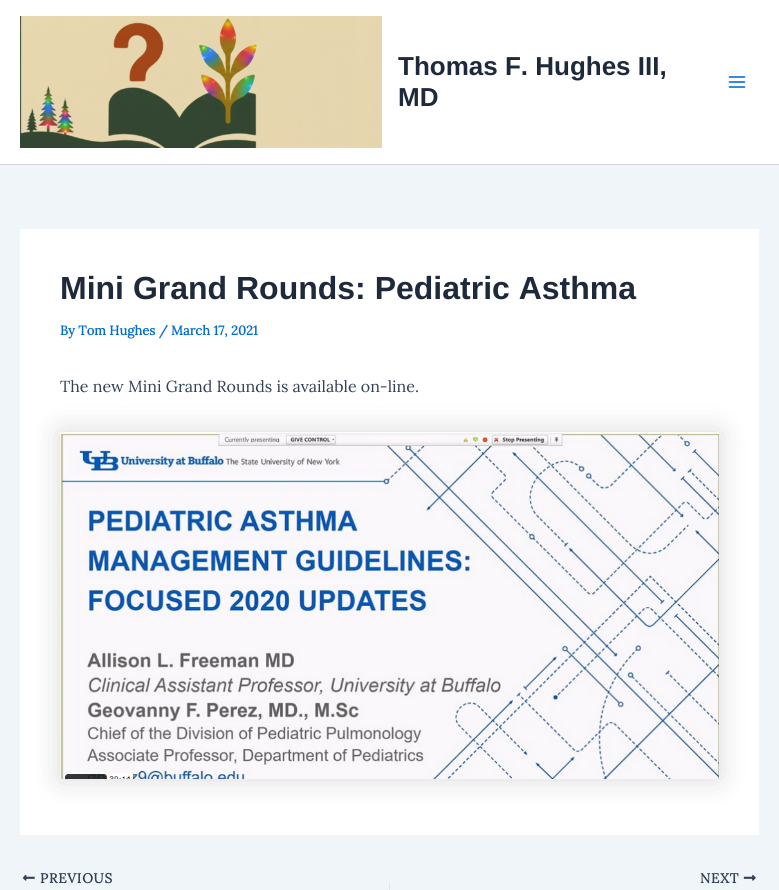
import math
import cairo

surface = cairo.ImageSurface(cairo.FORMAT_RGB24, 779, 890)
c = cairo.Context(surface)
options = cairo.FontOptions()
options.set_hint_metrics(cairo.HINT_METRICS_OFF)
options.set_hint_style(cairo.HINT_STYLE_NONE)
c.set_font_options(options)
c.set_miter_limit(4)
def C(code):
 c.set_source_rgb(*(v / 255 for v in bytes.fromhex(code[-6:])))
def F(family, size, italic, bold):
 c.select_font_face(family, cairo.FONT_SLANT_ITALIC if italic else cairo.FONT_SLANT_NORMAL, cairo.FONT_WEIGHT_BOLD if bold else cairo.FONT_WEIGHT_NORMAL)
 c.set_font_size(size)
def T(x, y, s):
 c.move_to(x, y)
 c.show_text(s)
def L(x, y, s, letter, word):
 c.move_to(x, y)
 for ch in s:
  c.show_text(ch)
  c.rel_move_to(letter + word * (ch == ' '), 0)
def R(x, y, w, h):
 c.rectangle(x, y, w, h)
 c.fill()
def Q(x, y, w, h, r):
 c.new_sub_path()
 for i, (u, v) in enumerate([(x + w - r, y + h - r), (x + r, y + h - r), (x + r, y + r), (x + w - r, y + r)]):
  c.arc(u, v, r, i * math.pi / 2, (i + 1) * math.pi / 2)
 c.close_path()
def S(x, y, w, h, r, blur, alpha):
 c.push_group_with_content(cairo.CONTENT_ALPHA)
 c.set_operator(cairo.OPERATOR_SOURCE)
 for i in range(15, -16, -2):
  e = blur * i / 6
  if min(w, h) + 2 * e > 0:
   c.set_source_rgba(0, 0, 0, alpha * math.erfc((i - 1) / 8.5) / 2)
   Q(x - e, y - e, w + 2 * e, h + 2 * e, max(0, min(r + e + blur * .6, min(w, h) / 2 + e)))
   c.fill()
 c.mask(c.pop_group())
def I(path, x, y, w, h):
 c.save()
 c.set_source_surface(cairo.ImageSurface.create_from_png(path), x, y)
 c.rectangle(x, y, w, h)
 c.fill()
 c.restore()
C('f0f5fa')
c.paint()
C('ffffff')
R(0,0,779,164)
C('d1d5db')
R(0,164,779,1)
I('1.png',20,16,362,132)
F('Liberation Sans',26,0,1)
C('1e293b')
T(398,75,'Thomas F. Hughes III,')
T(398,106,'MD')
I('2.png',728,76,18,12)
C('ffffff')
R(20,229,739,606)
F('Liberation Sans',32,0,1)
C('1e293b')
T(60,299,'Mini Grand Rounds: Pediatric Asthma')
F('Lora',13,0,1)
C('046bd2')
T(60,335,'By Tom Hughes / March 17, 2021')
C('000000')
S(60,432,659,347,0,15,.15)
F('Lora',16,0,0)
C('334155')
T(60,392,'The new Mini Grand Rounds is available on-line.')
I('3.png',60,432,659,347)
I('4.png',22,874,13,7)
F('Lora',13.5,0,1)
L(40,883,'PREVIOUS',.75,0)
C('e1e8ed')
R(389,882,1,8)
C('334155')
L(700,883,'NEXT',.75,0)
I('5.png',743,874,13,7)
surface.write_to_png('o.png')
